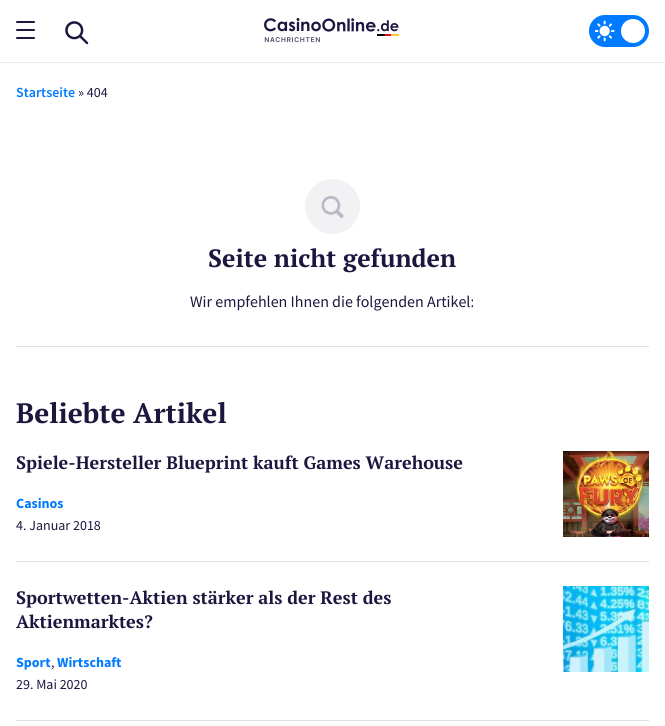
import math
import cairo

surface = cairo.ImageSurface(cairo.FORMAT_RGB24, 665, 726)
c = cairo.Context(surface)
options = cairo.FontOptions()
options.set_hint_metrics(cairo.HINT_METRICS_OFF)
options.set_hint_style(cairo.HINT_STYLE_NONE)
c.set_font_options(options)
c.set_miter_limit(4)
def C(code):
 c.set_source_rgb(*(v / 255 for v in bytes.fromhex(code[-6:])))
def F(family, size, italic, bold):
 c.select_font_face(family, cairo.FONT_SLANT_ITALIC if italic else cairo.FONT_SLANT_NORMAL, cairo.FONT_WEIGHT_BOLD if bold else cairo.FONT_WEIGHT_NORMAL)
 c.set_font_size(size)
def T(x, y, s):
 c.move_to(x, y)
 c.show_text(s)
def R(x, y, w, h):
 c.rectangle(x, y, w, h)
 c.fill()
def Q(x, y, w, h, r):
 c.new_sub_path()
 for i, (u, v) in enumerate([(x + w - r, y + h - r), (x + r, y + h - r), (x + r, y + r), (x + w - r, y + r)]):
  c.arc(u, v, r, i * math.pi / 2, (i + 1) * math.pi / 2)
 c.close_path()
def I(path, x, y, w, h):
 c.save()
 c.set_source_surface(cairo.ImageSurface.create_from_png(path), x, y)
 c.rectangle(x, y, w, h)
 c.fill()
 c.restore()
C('ffffff')
c.paint()
C('e8e8eb')
R(0,62,665,1)
C('1d163f')
Q(16,21,19,2,1)
c.fill()
Q(16,29,19,2,1)
c.fill()
Q(16,37,19,2,1)
c.fill()
I('1.png',65,21,24,24)
I('2.png',264,18,135,25)
C('007bff')
Q(589,15,60,32,16)
c.fill()
I('3.png',594,20,21,22)
C('ffffff')
c.arc(633,31,12,0,2 * math.pi)
c.fill()
F('Source Sans Pro SemiBold',14,0,0)
C('007bff')
T(16,97,'Startseite')
F('Source Sans Pro',14,0,0)
C('1d163f')
T(78,97,'» 404')
C('e0e0e0')
R(16,346,633,1)
C('f2f2f5')
c.new_path()
c.arc(332.5,206.5,27.5,0,2 * math.pi)
c.fill()
I('4.png',321,196,23,22)
F('PT Serif',25,0,1)
C('1d163f')
T(208,267,'Seite nicht gefunden')
F('Source Sans Pro',16,0,0)
T(190,307,'Wir empfehlen Ihnen die folgenden Artikel:')
F('PT Serif',28,0,1)
T(16,423,'Beliebte Artikel')
C('e0e0e0')
R(16,561,633,1)
F('PT Serif',18,0,1)
C('1d163f')
T(16,469,'Spiele-Hersteller Blueprint kauft Games Warehouse')
F('Source Sans Pro',14,0,1)
C('007bff')
T(16,508,'Casinos')
F('Source Sans Pro',14,0,0)
C('1d163f')
T(16,530,'4. Januar 2018')
I('5.png',563,451,86,86)
C('e0e0e0')
R(16,720,633,1)
F('PT Serif',18,0,1)
C('1d163f')
T(16,604,'Sportwetten-Aktien stärker als der Rest des')
T(16,628,'Aktienmarktes?')
F('Source Sans Pro',14,0,1)
C('007bff')
T(16,667,'Sport')
F('Source Sans Pro',14,0,0)
C('1d163f')
T(51,667,',')
F('Source Sans Pro',14,0,1)
C('007bff')
T(57,667,'Wirtschaft')
F('Source Sans Pro',14,0,0)
C('1d163f')
T(16,689,'29. Mai 2020')
I('6.png',563,586,86,86)
surface.write_to_png('o.png')
